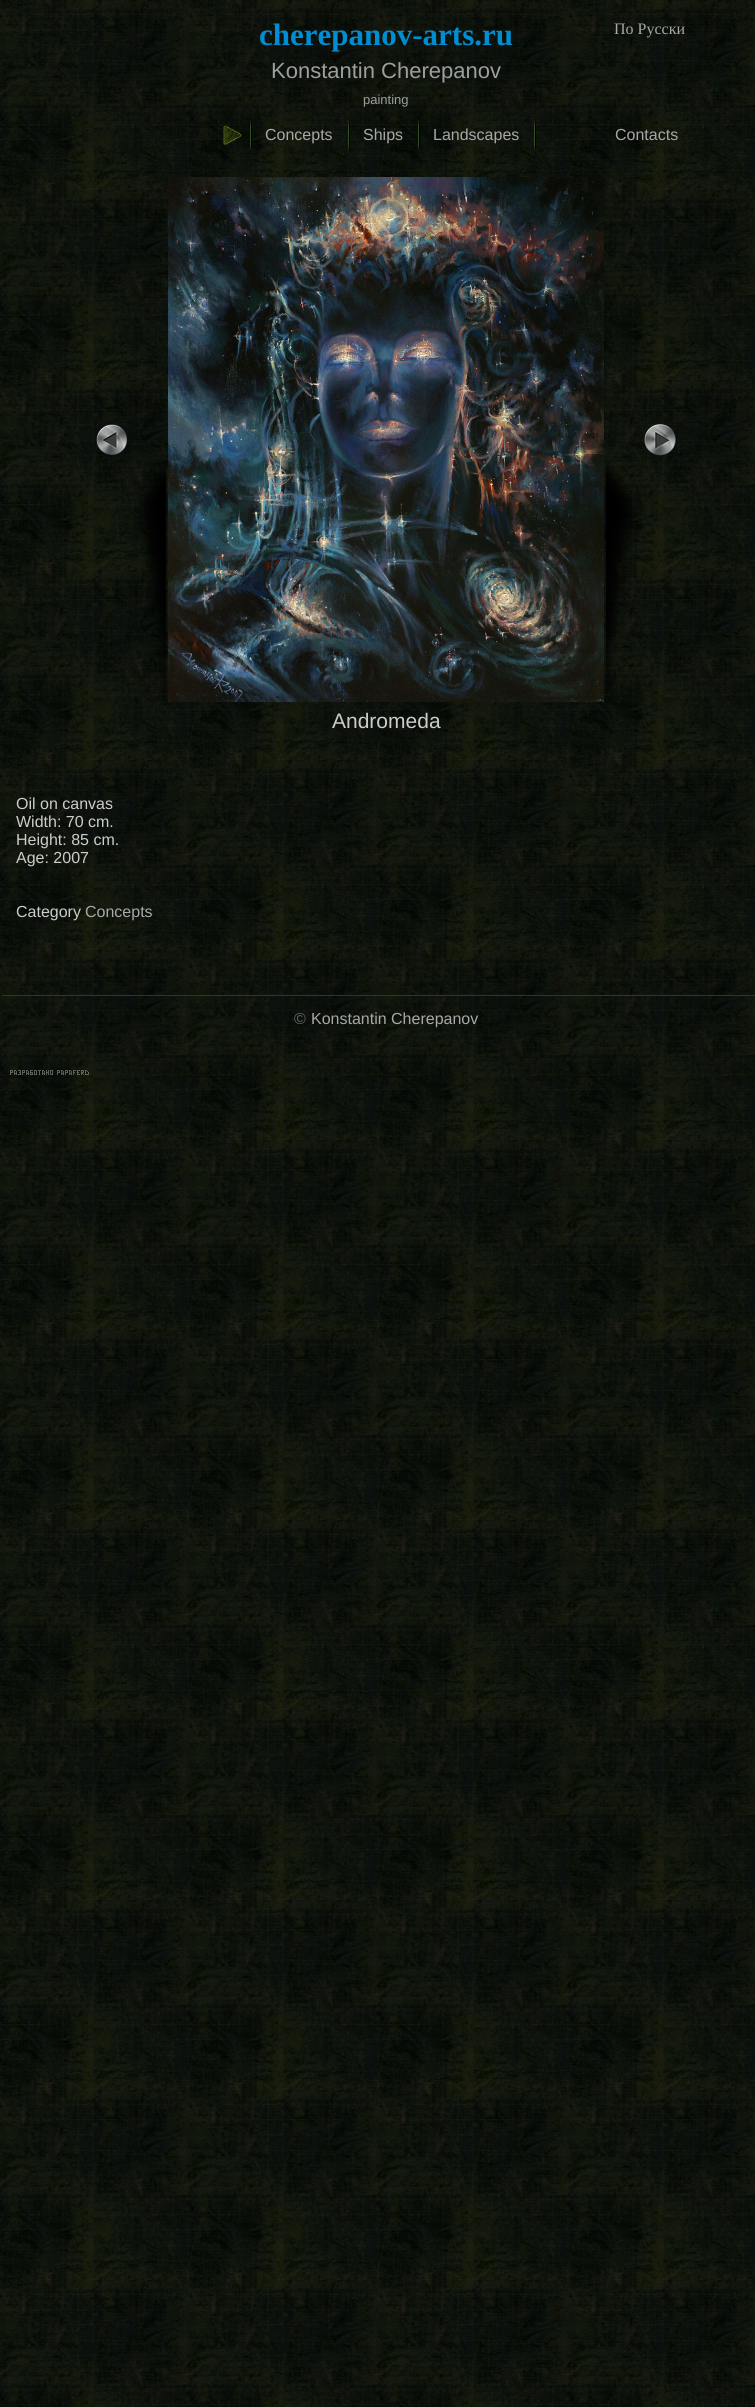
import math
import cairo

surface = cairo.ImageSurface(cairo.FORMAT_RGB24, 755, 2407)
c = cairo.Context(surface)
options = cairo.FontOptions()
options.set_hint_metrics(cairo.HINT_METRICS_OFF)
options.set_hint_style(cairo.HINT_STYLE_NONE)
c.set_font_options(options)
c.set_miter_limit(4)
def C(code):
 c.set_source_rgb(*(v / 255 for v in bytes.fromhex(code[-6:])))
def F(family, size, italic, bold):
 c.select_font_face(family, cairo.FONT_SLANT_ITALIC if italic else cairo.FONT_SLANT_NORMAL, cairo.FONT_WEIGHT_BOLD if bold else cairo.FONT_WEIGHT_NORMAL)
 c.set_font_size(size)
def T(x, y, s):
 c.move_to(x, y)
 c.show_text(s)
def R(x, y, w, h):
 c.rectangle(x, y, w, h)
 c.fill()
def I(path, x, y, w, h):
 c.save()
 c.set_source_surface(cairo.ImageSurface.create_from_png(path), x, y)
 c.rectangle(x, y, w, h)
 c.fill()
 c.restore()
C('ffffff')
c.paint()
I('1.png',0,0,755,2407)
F('Liberation Serif',31,0,1)
C('008dd2')
T(259,45,'cherepanov-arts.ru')
F('Liberation Sans',22,0,0)
C('9d9e9e')
T(271,78,'Konstantin Cherepanov')
F('Liberation Sans',13,0,0)
T(363,104,'painting')
I('2.png',223,125,19,20)
I('3.png',250,120,2,30)
F('Liberation Sans',16,0,0)
C('a8a8a8')
T(265,140,'Concepts')
I('4.png',348,120,2,30)
T(363,140,'Ships')
I('5.png',418,120,2,30)
T(433,140,'Landscapes')
I('6.png',534,120,2,30)
T(615,140,'Contacts')
I('7.png',138,459,28,247)
I('8.png',96,424,32,32)
I('9.png',168,177,436,525)
I('10.png',606,458,27,246)
I('11.png',644,424,32,32)
F('Liberation Sans',21,0,0)
C('cccccc')
T(332,728,'Andromeda')
F('Liberation Sans',16,0,0)
T(16,809,'Оil on canvas')
T(16,827,'Width: 70 cm.')
T(16,845,'Height: 85 cm.')
T(16,863,'Age: 2007')
T(16,917,'Category')
C('a8a8a8')
T(85,917,'Concepts')
C('333333')
R(2,995,753,1)
C('666666')
T(294,1024,'©')
C('a8a8a8')
T(311,1024,'Konstantin Cherepanov')
F('Liberation Serif',16,0,0)
T(614,34,'По Русски')
I('12.png',10,1070,79,5)
surface.write_to_png('o.png')
